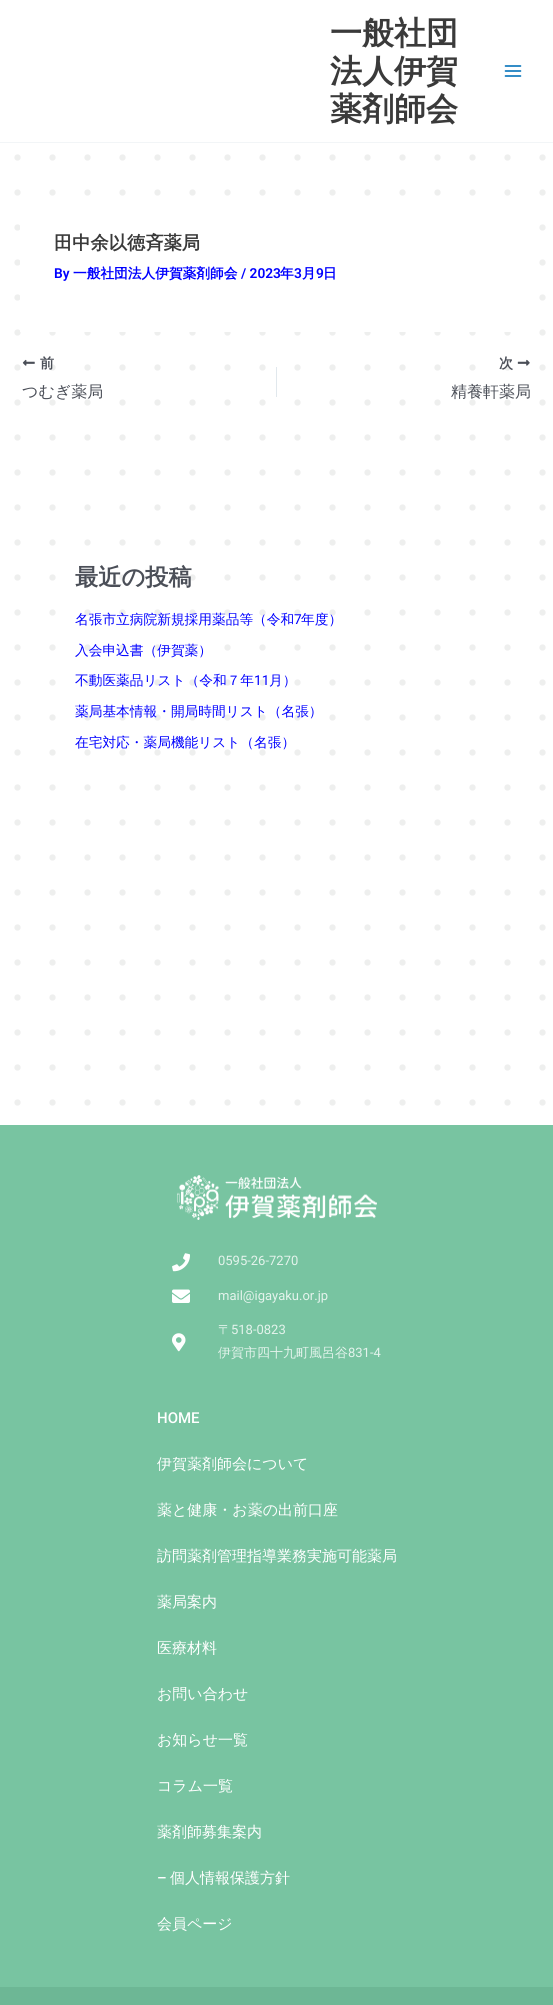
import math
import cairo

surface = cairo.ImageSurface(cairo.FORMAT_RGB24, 553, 2005)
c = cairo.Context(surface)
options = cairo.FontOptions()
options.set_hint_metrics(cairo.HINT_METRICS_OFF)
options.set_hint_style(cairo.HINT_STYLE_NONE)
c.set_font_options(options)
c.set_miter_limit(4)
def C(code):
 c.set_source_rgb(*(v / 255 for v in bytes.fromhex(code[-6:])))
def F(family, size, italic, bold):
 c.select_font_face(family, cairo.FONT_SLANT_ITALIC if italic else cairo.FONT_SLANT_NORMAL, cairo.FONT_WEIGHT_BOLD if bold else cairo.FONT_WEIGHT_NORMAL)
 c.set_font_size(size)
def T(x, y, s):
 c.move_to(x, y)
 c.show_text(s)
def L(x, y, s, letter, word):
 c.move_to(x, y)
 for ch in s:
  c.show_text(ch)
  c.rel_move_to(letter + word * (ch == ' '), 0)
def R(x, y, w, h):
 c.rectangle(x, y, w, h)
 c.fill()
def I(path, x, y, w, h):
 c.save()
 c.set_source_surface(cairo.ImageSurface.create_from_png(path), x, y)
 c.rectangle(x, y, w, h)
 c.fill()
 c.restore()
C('ffffff')
c.paint()
I('1.png',0,143,553,982)
C('f2f5f7')
R(0,142,553,1)
F('WenQuanYi Zen Hei',32,0,1)
C('3a3a3a')
T(330,44,'一般社団')
T(330,82,'法人伊賀')
T(330,120,'薬剤師会')
I('2.png',504,65,18,12)
C('ffffff')
R(20,224,491,108)
F('WenQuanYi Zen Hei',18.25,0,1)
C('3a3a3a')
T(54,249,'田中余以徳斉薬局')
F('Roboto SemiBold',13.7,0,0)
C('0000ff')
T(54,278,'By')
F('WenQuanYi Zen Hei',13.7,0,1)
T(73,278,'一般社団法人伊賀薬剤師会')
F('Roboto SemiBold',13.7,0,0)
T(241,278,'/ 2023')
F('WenQuanYi Zen Hei',13.7,0,1)
T(280,278,'年')
F('Roboto SemiBold',13.7,0,0)
T(294,278,'3')
F('WenQuanYi Zen Hei',13.7,0,1)
T(302,278,'月')
F('Roboto SemiBold',13.7,0,0)
T(316,278,'9')
F('WenQuanYi Zen Hei',13.7,0,1)
T(323,278,'日')
I('3.png',22,359,13,7)
F('WenQuanYi Zen Hei',14,0,1)
C('4b4f58')
L(40,368,'前',1,0)
F('WenQuanYi Zen Hei Medium',16,0,0)
T(22,397,'つむぎ薬局')
C('e1e8ed')
R(276,367,1,30)
F('WenQuanYi Zen Hei',14,0,1)
C('4b4f58')
L(499,368,'次',1,0)
I('4.png',517,359,13,7)
F('WenQuanYi Zen Hei Medium',16,0,0)
T(451,397,'精養軒薬局')
F('WenQuanYi Zen Hei',23.25,0,1)
T(75,585,'最近の投稿')
F('WenQuanYi Zen Hei Medium',13.7,0,0)
C('0000ff')
T(75,624,'名張市立病院新規採用薬品等（令和')
F('Roboto',13.7,0,0)
T(294,624,'7')
F('WenQuanYi Zen Hei Medium',13.7,0,0)
T(301,624,'年度）')
T(75,655,'入会申込書（伊賀薬）')
T(75,685,'不動医薬品リスト（令和７年')
F('Roboto',13.7,0,0)
T(254,685,'11')
F('WenQuanYi Zen Hei Medium',13.7,0,0)
T(269,685,'月）')
T(75,716,'薬局基本情報・開局時間リスト（名張）')
T(75,747,'在宅対応・薬局機能リスト（名張）')
C('78c4a1')
R(0,1125,553,862)
I('5.png',177,1175,200,45)
I('6.png',172,1253,18,19)
F('Roboto',13,0,0)
C('e4f3ec')
T(218,1265,'0595-26-7270')
I('7.png',172,1289,18,14)
T(218,1300,'mail@igayaku.or.jp')
I('8.png',172,1333,14,19)
F('WenQuanYi Zen Hei Medium',13,0,0)
T(218,1334,'〒')
F('Roboto',13,0,0)
T(231,1334,'518-0823')
F('WenQuanYi Zen Hei Medium',13,0,0)
T(218,1357,'伊賀市四十九町風呂谷')
F('Roboto',13,0,0)
T(348,1357,'831-4')
F('Roboto Medium',15,0,0)
C('ffffff')
T(157,1423,'HOME')
F('WenQuanYi Zen Hei Medium',15,0,0)
T(157,1469,'伊賀薬剤師会について')
T(157,1515,'薬と健康・お薬の出前⼝座')
T(157,1561,'訪問薬剤管理指導業務実施可能薬局')
T(157,1607,'薬局案内')
T(157,1653,'医療材料')
T(157,1699,'お問い合わせ')
T(157,1745,'お知らせ一覧')
T(157,1791,'コラム一覧')
T(157,1837,'薬剤師募集案内')
F('Roboto Medium',15,0,0)
T(157,1883,'–')
F('WenQuanYi Zen Hei Medium',15,0,0)
T(170,1883,'個人情報保護方針')
T(157,1929,'会員ページ')
C('6db795')
R(0,1987,553,18)
surface.write_to_png('o.png')
